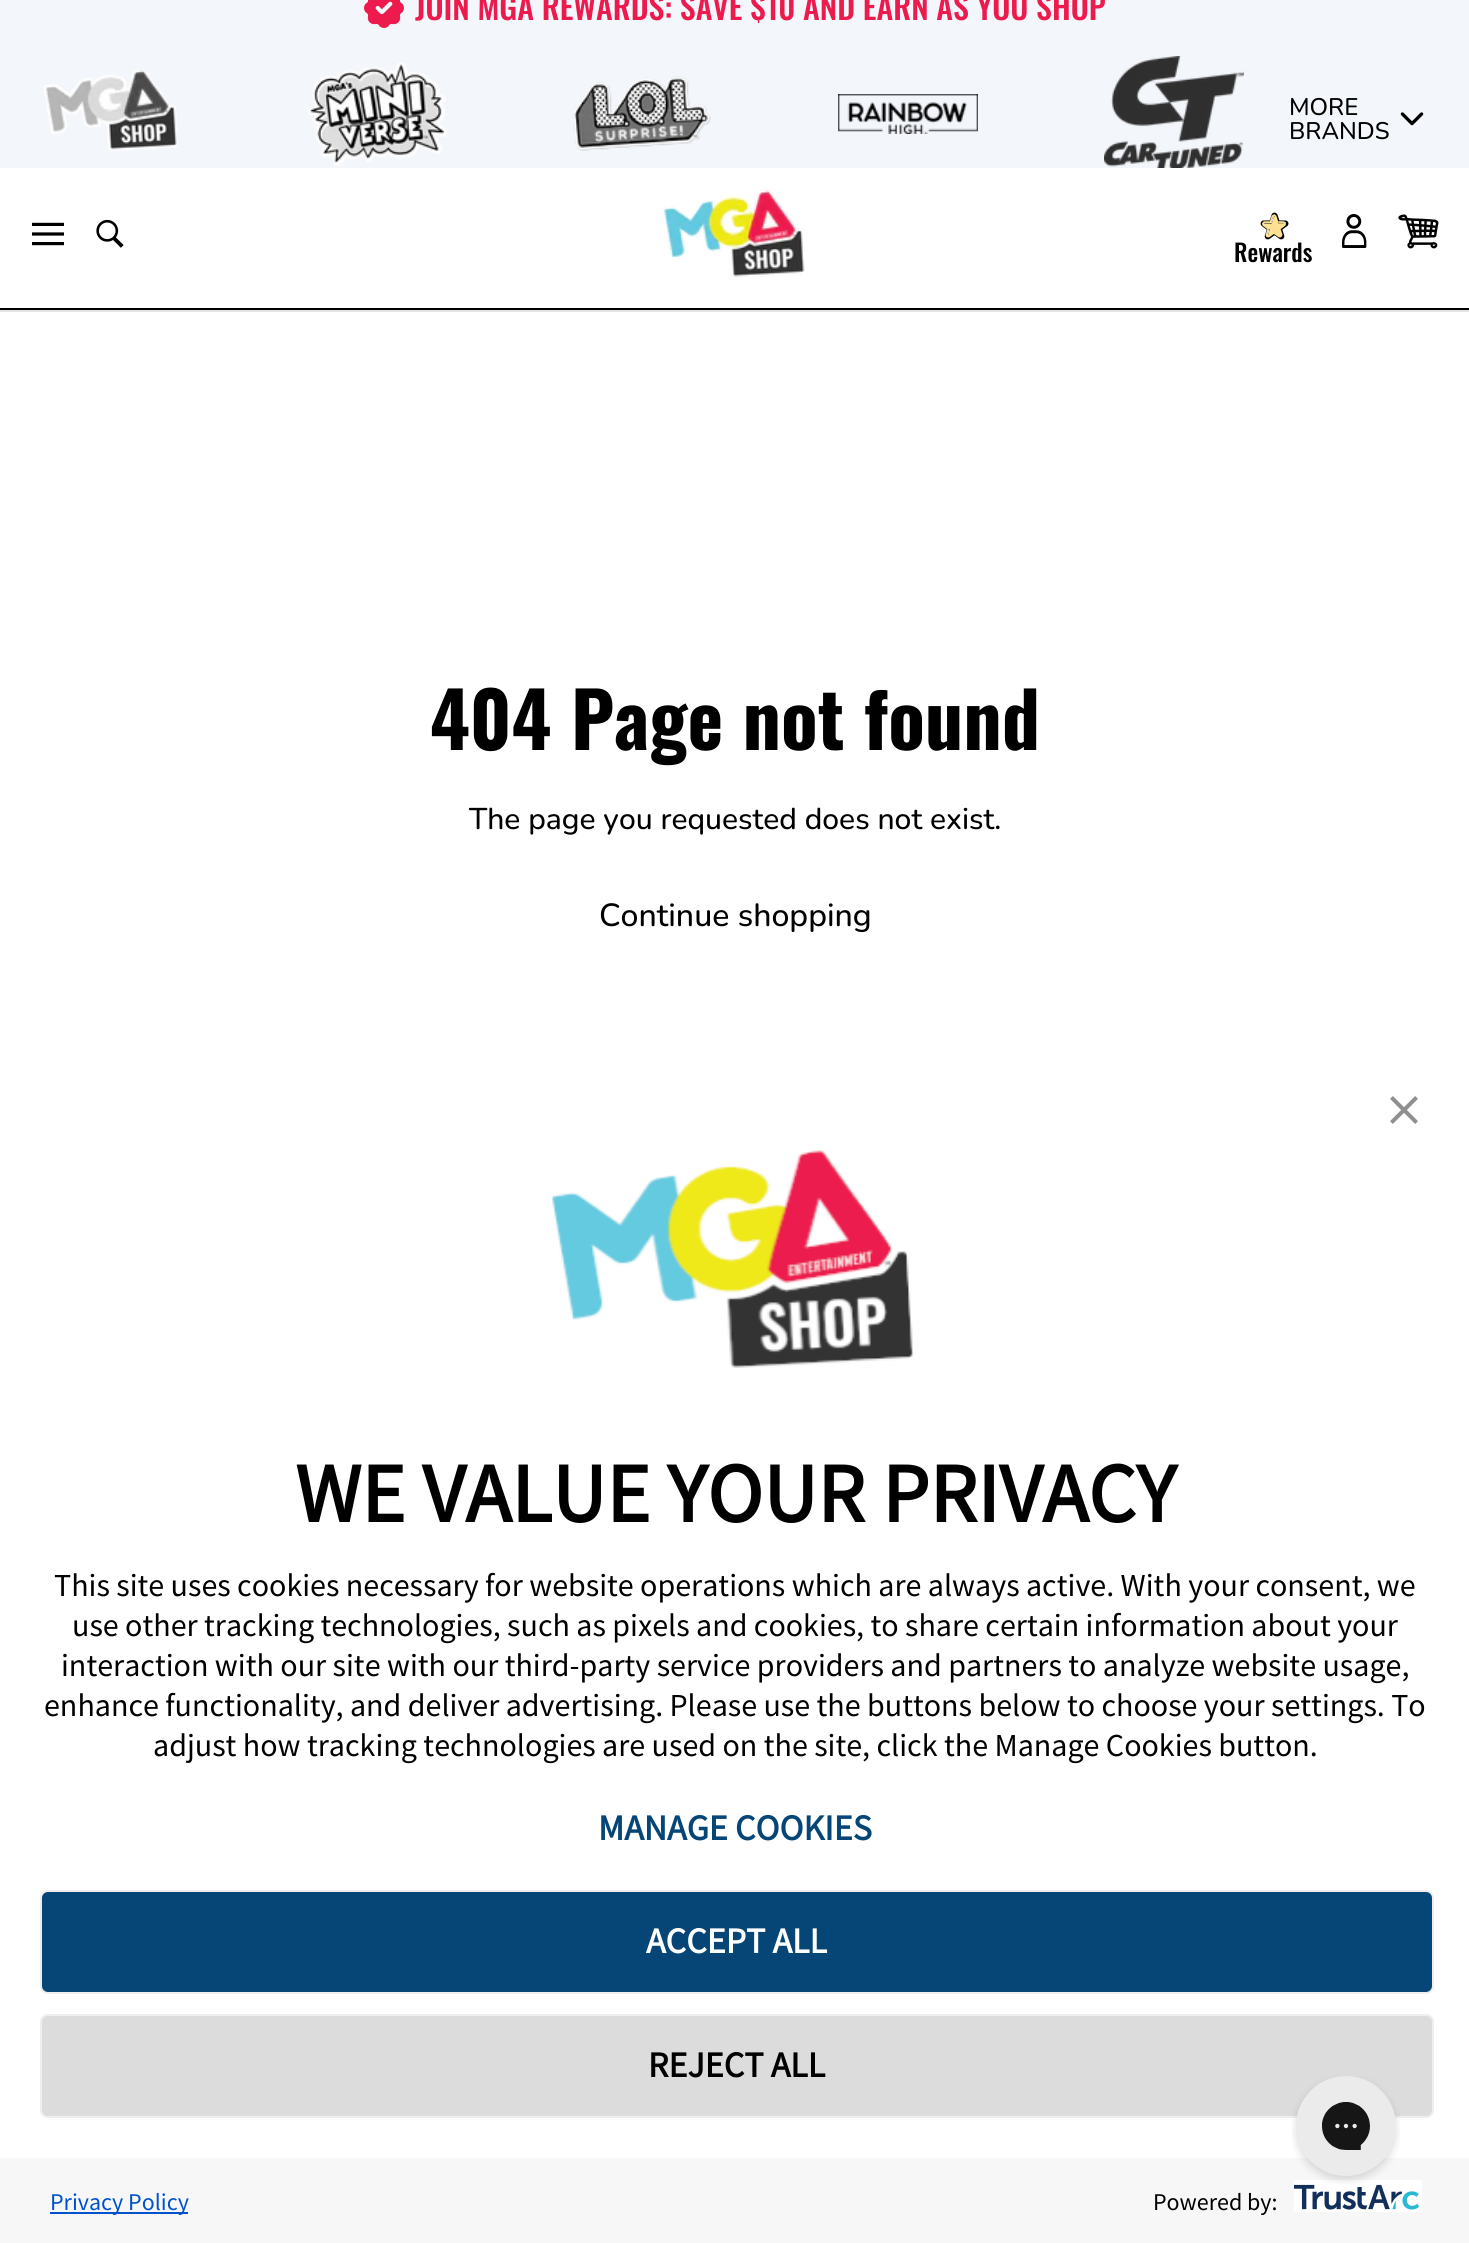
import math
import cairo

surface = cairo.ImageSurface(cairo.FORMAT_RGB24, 1469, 2243)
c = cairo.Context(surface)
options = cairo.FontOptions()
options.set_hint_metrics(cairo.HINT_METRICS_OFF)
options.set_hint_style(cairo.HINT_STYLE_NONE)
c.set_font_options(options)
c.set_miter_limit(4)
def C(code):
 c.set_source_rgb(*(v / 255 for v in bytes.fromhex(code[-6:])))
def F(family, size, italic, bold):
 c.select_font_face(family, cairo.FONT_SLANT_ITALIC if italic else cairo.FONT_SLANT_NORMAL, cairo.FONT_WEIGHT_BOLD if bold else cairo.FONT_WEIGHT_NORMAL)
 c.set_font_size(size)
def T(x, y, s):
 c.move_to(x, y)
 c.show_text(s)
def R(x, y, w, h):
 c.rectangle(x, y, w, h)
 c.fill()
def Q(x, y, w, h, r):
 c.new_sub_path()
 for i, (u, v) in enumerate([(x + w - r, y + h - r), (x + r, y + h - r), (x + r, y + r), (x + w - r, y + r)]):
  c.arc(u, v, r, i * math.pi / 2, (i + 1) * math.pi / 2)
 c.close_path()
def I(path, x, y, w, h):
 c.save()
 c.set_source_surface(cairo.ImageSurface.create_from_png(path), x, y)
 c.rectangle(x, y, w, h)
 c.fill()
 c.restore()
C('ffffff')
c.paint()
C('f3f6fb')
R(0,0,1469,168)
I('1.png',364,0,40,28)
F('Oswald Medium',32,0,0)
C('ec1a4d')
T(415,20,'JOIN MGA REWARDS: SAVE $10 AND EARN AS YOU SHOP')
I('2.png',43,69,135,82)
I('3.png',308,62,140,104)
I('4.png',572,76,139,75)
I('5.png',838,94,140,40)
I('6.png',1104,56,140,112)
F('Nunito Medium',24,0,0)
C('000000')
T(1289,115,'MORE')
I('7.png',1400,112,24,14)
T(1289,139,'BRANDS')
C('e4e4e4')
R(0,310,1469,2)
C('000000')
R(0,308,1469,2)
I('8.png',32,222,32,24)
I('9.png',96,219,28,29)
I('10.png',662,188,143,89)
I('11.png',1342,214,25,34)
I('12.png',1398,214,41,35)
I('13.png',1260,212,29,28)
I('14.png',1262,214,24,24)
F('Oswald Medium',24,0,0)
T(1234,262,'Rewards')
F('Oswald',76,0,1)
T(430,750,'404 Page not found')
F('Nunito Medium',30,0,0)
T(469,829,'The page you requested does not exist.')
F('Nunito Medium',32,0,0)
T(599,926,'Continue shopping')
I('15.png',551,1150,363,218)
F('Source Sans Pro',84,0,1)
T(295,1522,'WE VALUE YOUR PRIVACY')
I('16.png',1390,1096,28,28)
F('Source Sans Pro',32,0,0)
T(54,1596,'This site uses cookies necessary for website operations which are always active. With your consent, we')
T(72,1636,'use other tracking technologies, such as pixels and cookies, to share certain information about your')
T(61,1676,'interaction with our site with our third-party service providers and partners to analyze website usage,')
T(44,1716,'enhance functionality, and deliver advertising. Please use the buttons below to choose your settings. To')
T(153,1756,'adjust how tracking technologies are used on the site, click the Manage Cookies button.')
F('Source Sans Pro',36,0,1)
C('064676')
T(598,1840,'MANAGE COOKIES')
Q(41,1891,1392,102,7)
c.fill_preserve()
C('eeeeee')
c.stroke()
C('ffffff')
T(646,1953,'ACCEPT ALL')
C('dcdcdc')
Q(41,2015,1392,102,7)
c.fill_preserve()
C('eeeeee')
c.stroke()
C('000000')
T(648,2077,'REJECT ALL')
C('f7f7f7')
R(0,2158,1469,85)
C('0052cc')
R(50,2212,138,2)
F('Source Sans Pro',24,0,0)
T(50,2210,'Privacy Policy')
C('000000')
T(1153,2210,'Powered by:')
I('17.png',1294,2180,128,32)
I('18.png',1292,2076,108,108)
surface.write_to_png('o.png')
